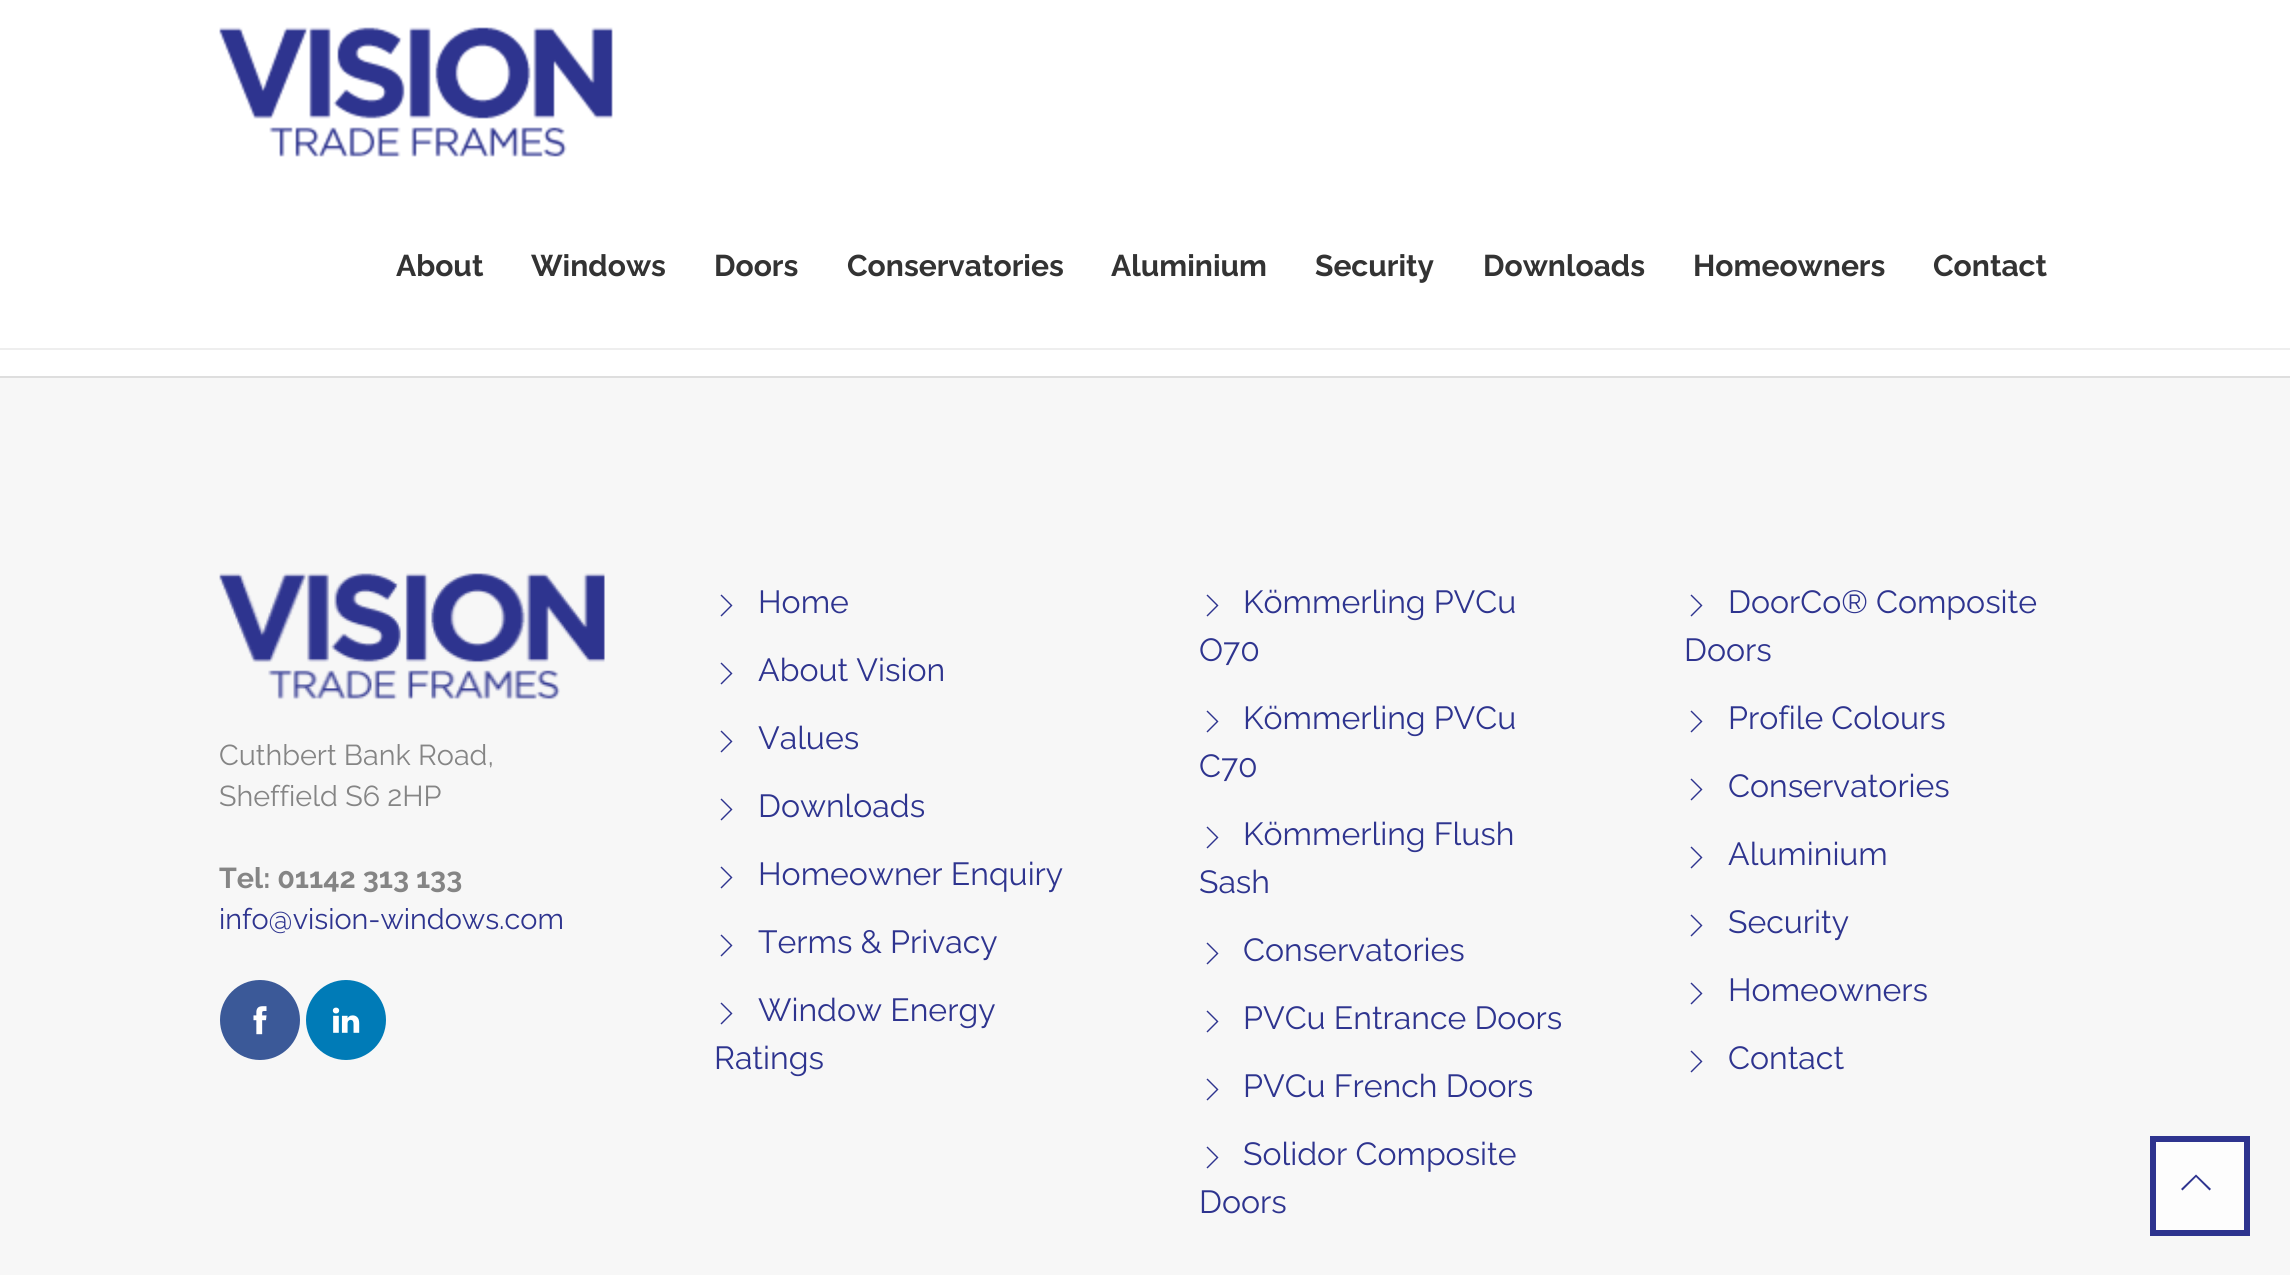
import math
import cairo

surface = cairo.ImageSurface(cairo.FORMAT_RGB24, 2290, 1275)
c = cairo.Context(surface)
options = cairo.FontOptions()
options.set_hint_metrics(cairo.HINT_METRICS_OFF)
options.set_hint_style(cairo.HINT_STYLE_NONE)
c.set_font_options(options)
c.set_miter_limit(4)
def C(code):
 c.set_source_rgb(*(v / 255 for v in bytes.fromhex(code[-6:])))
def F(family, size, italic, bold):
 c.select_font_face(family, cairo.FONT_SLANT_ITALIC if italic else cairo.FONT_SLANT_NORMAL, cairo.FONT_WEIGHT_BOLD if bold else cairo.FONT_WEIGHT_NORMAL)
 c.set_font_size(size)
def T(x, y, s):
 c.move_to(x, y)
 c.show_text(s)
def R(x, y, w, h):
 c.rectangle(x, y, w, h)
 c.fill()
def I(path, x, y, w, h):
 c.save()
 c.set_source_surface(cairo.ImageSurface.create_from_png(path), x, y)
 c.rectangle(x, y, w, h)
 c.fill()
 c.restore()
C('f7f7f7')
c.paint()
C('ffffff')
R(0,0,2290,348)
C('eeeeee')
R(0,348,2290,2)
I('1.png',219,27,394,130)
F('Raleway',30,0,1)
C('333333')
T(396,276,'About')
T(531,276,'Windows')
T(714,276,'Doors')
T(847,276,'Conservatories')
T(1111,276,'Aluminium')
T(1315,276,'Security')
T(1483,276,'Downloads')
T(1693,276,'Homeowners')
T(1933,276,'Contact')
C('ffffff')
R(0,350,2290,26)
C('dedede')
R(0,376,2290,2)
I('2.png',219,573,386,127)
F('Raleway',28.75,0,0)
C('858585')
T(219,765,'Cuthbert Bank Road,')
T(219,806,'Sheffield S6 2HP')
F('Raleway',28.75,0,1)
T(219,888,'Tel: 01142 313 133')
F('Raleway',28.75,0,0)
C('2e348f')
T(219,929,'info@vision-windows.com')
C('3b5998')
c.new_path()
c.arc(260,1020,40,0,2 * math.pi)
c.fill()
I('3.png',253,1006,14,29)
C('007bb7')
c.arc(346,1020,40,0,2 * math.pi)
c.fill()
I('4.png',332,1007,28,26)
C('2e348f')
c.new_path()
c.move_to(732.5,605.5)
c.line_to(721.5,616.5)
c.line_to(720.5,615.5)
c.line_to(730.5,605.5)
c.line_to(720.5,595.5)
c.line_to(721.5,594.5)
c.close_path()
c.fill()
F('Raleway',32,0,0)
T(758,613,'Home')
c.new_path()
c.move_to(732.5,673.5)
c.line_to(721.5,684.5)
c.line_to(720.5,683.5)
c.line_to(730.5,673.5)
c.line_to(720.5,663.5)
c.line_to(721.5,662.5)
c.close_path()
c.fill()
T(758,681,'About Vision')
c.new_path()
c.move_to(732.5,741.5)
c.line_to(721.5,752.5)
c.line_to(720.5,751.5)
c.line_to(730.5,741.5)
c.line_to(720.5,731.5)
c.line_to(721.5,730.5)
c.close_path()
c.fill()
T(758,749,'Values')
c.new_path()
c.move_to(732.5,809.5)
c.line_to(721.5,820.5)
c.line_to(720.5,819.5)
c.line_to(730.5,809.5)
c.line_to(720.5,799.5)
c.line_to(721.5,798.5)
c.close_path()
c.fill()
T(758,817,'Downloads')
c.new_path()
c.move_to(732.5,877.5)
c.line_to(721.5,888.5)
c.line_to(720.5,887.5)
c.line_to(730.5,877.5)
c.line_to(720.5,867.5)
c.line_to(721.5,866.5)
c.close_path()
c.fill()
T(758,885,'Homeowner Enquiry')
c.new_path()
c.move_to(732.5,945.5)
c.line_to(721.5,956.5)
c.line_to(720.5,955.5)
c.line_to(730.5,945.5)
c.line_to(720.5,935.5)
c.line_to(721.5,934.5)
c.close_path()
c.fill()
T(758,953,'Terms & Privacy')
c.new_path()
c.move_to(732.5,1013.5)
c.line_to(721.5,1024.5)
c.line_to(720.5,1023.5)
c.line_to(730.5,1013.5)
c.line_to(720.5,1003.5)
c.line_to(721.5,1002.5)
c.close_path()
c.fill()
T(758,1021,'Window Energy')
T(714,1069,'Ratings')
c.new_path()
c.move_to(1218.5,605.5)
c.line_to(1207.5,616.5)
c.line_to(1206.5,615.5)
c.line_to(1216.5,605.5)
c.line_to(1206.5,595.5)
c.line_to(1207.5,594.5)
c.close_path()
c.fill()
T(1243,613,'Kömmerling PVCu')
T(1199,661,'O70')
c.new_path()
c.move_to(1218.5,721.5)
c.line_to(1207.5,732.5)
c.line_to(1206.5,731.5)
c.line_to(1216.5,721.5)
c.line_to(1206.5,711.5)
c.line_to(1207.5,710.5)
c.close_path()
c.fill()
T(1243,729,'Kömmerling PVCu')
T(1199,777,'C70')
c.new_path()
c.move_to(1218.5,837.5)
c.line_to(1207.5,848.5)
c.line_to(1206.5,847.5)
c.line_to(1216.5,837.5)
c.line_to(1206.5,827.5)
c.line_to(1207.5,826.5)
c.close_path()
c.fill()
T(1243,845,'Kömmerling Flush')
T(1199,893,'Sash')
c.new_path()
c.move_to(1218.5,953.5)
c.line_to(1207.5,964.5)
c.line_to(1206.5,963.5)
c.line_to(1216.5,953.5)
c.line_to(1206.5,943.5)
c.line_to(1207.5,942.5)
c.close_path()
c.fill()
T(1243,961,'Conservatories')
c.new_path()
c.move_to(1218.5,1021.5)
c.line_to(1207.5,1032.5)
c.line_to(1206.5,1031.5)
c.line_to(1216.5,1021.5)
c.line_to(1206.5,1011.5)
c.line_to(1207.5,1010.5)
c.close_path()
c.fill()
T(1243,1029,'PVCu Entrance Doors')
c.new_path()
c.move_to(1218.5,1089.5)
c.line_to(1207.5,1100.5)
c.line_to(1206.5,1099.5)
c.line_to(1216.5,1089.5)
c.line_to(1206.5,1079.5)
c.line_to(1207.5,1078.5)
c.close_path()
c.fill()
T(1243,1097,'PVCu French Doors')
c.new_path()
c.move_to(1218.5,1157.5)
c.line_to(1207.5,1168.5)
c.line_to(1206.5,1167.5)
c.line_to(1216.5,1157.5)
c.line_to(1206.5,1147.5)
c.line_to(1207.5,1146.5)
c.close_path()
c.fill()
T(1243,1165,'Solidor Composite')
T(1199,1213,'Doors')
c.new_path()
c.move_to(1702.5,605.5)
c.line_to(1691.5,616.5)
c.line_to(1690.5,615.5)
c.line_to(1700.5,605.5)
c.line_to(1690.5,595.5)
c.line_to(1691.5,594.5)
c.close_path()
c.fill()
T(1728,613,'DoorCo® Composite')
T(1684,661,'Doors')
c.new_path()
c.move_to(1702.5,721.5)
c.line_to(1691.5,732.5)
c.line_to(1690.5,731.5)
c.line_to(1700.5,721.5)
c.line_to(1690.5,711.5)
c.line_to(1691.5,710.5)
c.close_path()
c.fill()
T(1728,729,'Profile Colours')
c.new_path()
c.move_to(1702.5,789.5)
c.line_to(1691.5,800.5)
c.line_to(1690.5,799.5)
c.line_to(1700.5,789.5)
c.line_to(1690.5,779.5)
c.line_to(1691.5,778.5)
c.close_path()
c.fill()
T(1728,797,'Conservatories')
c.new_path()
c.move_to(1702.5,857.5)
c.line_to(1691.5,868.5)
c.line_to(1690.5,867.5)
c.line_to(1700.5,857.5)
c.line_to(1690.5,847.5)
c.line_to(1691.5,846.5)
c.close_path()
c.fill()
T(1728,865,'Aluminium')
c.new_path()
c.move_to(1702.5,925.5)
c.line_to(1691.5,936.5)
c.line_to(1690.5,935.5)
c.line_to(1700.5,925.5)
c.line_to(1690.5,915.5)
c.line_to(1691.5,914.5)
c.close_path()
c.fill()
T(1728,933,'Security')
c.new_path()
c.move_to(1702.5,993.5)
c.line_to(1691.5,1004.5)
c.line_to(1690.5,1003.5)
c.line_to(1700.5,993.5)
c.line_to(1690.5,983.5)
c.line_to(1691.5,982.5)
c.close_path()
c.fill()
T(1728,1001,'Homeowners')
c.new_path()
c.move_to(1702.5,1061.5)
c.line_to(1691.5,1072.5)
c.line_to(1690.5,1071.5)
c.line_to(1700.5,1061.5)
c.line_to(1690.5,1051.5)
c.line_to(1691.5,1050.5)
c.close_path()
c.fill()
T(1728,1069,'Contact')
C('fdfdfd')
c.rectangle(2153,1139,94,94)
c.fill_preserve()
C('2e348f')
c.set_line_width(6)
c.stroke()
c.new_path()
c.move_to(2211,1189)
c.line_to(2209.5,1190.5)
c.line_to(2196,1177)
c.line_to(2182.5,1190.5)
c.line_to(2181,1189)
c.line_to(2196,1174.5)
c.close_path()
c.fill()
surface.write_to_png('o.png')
